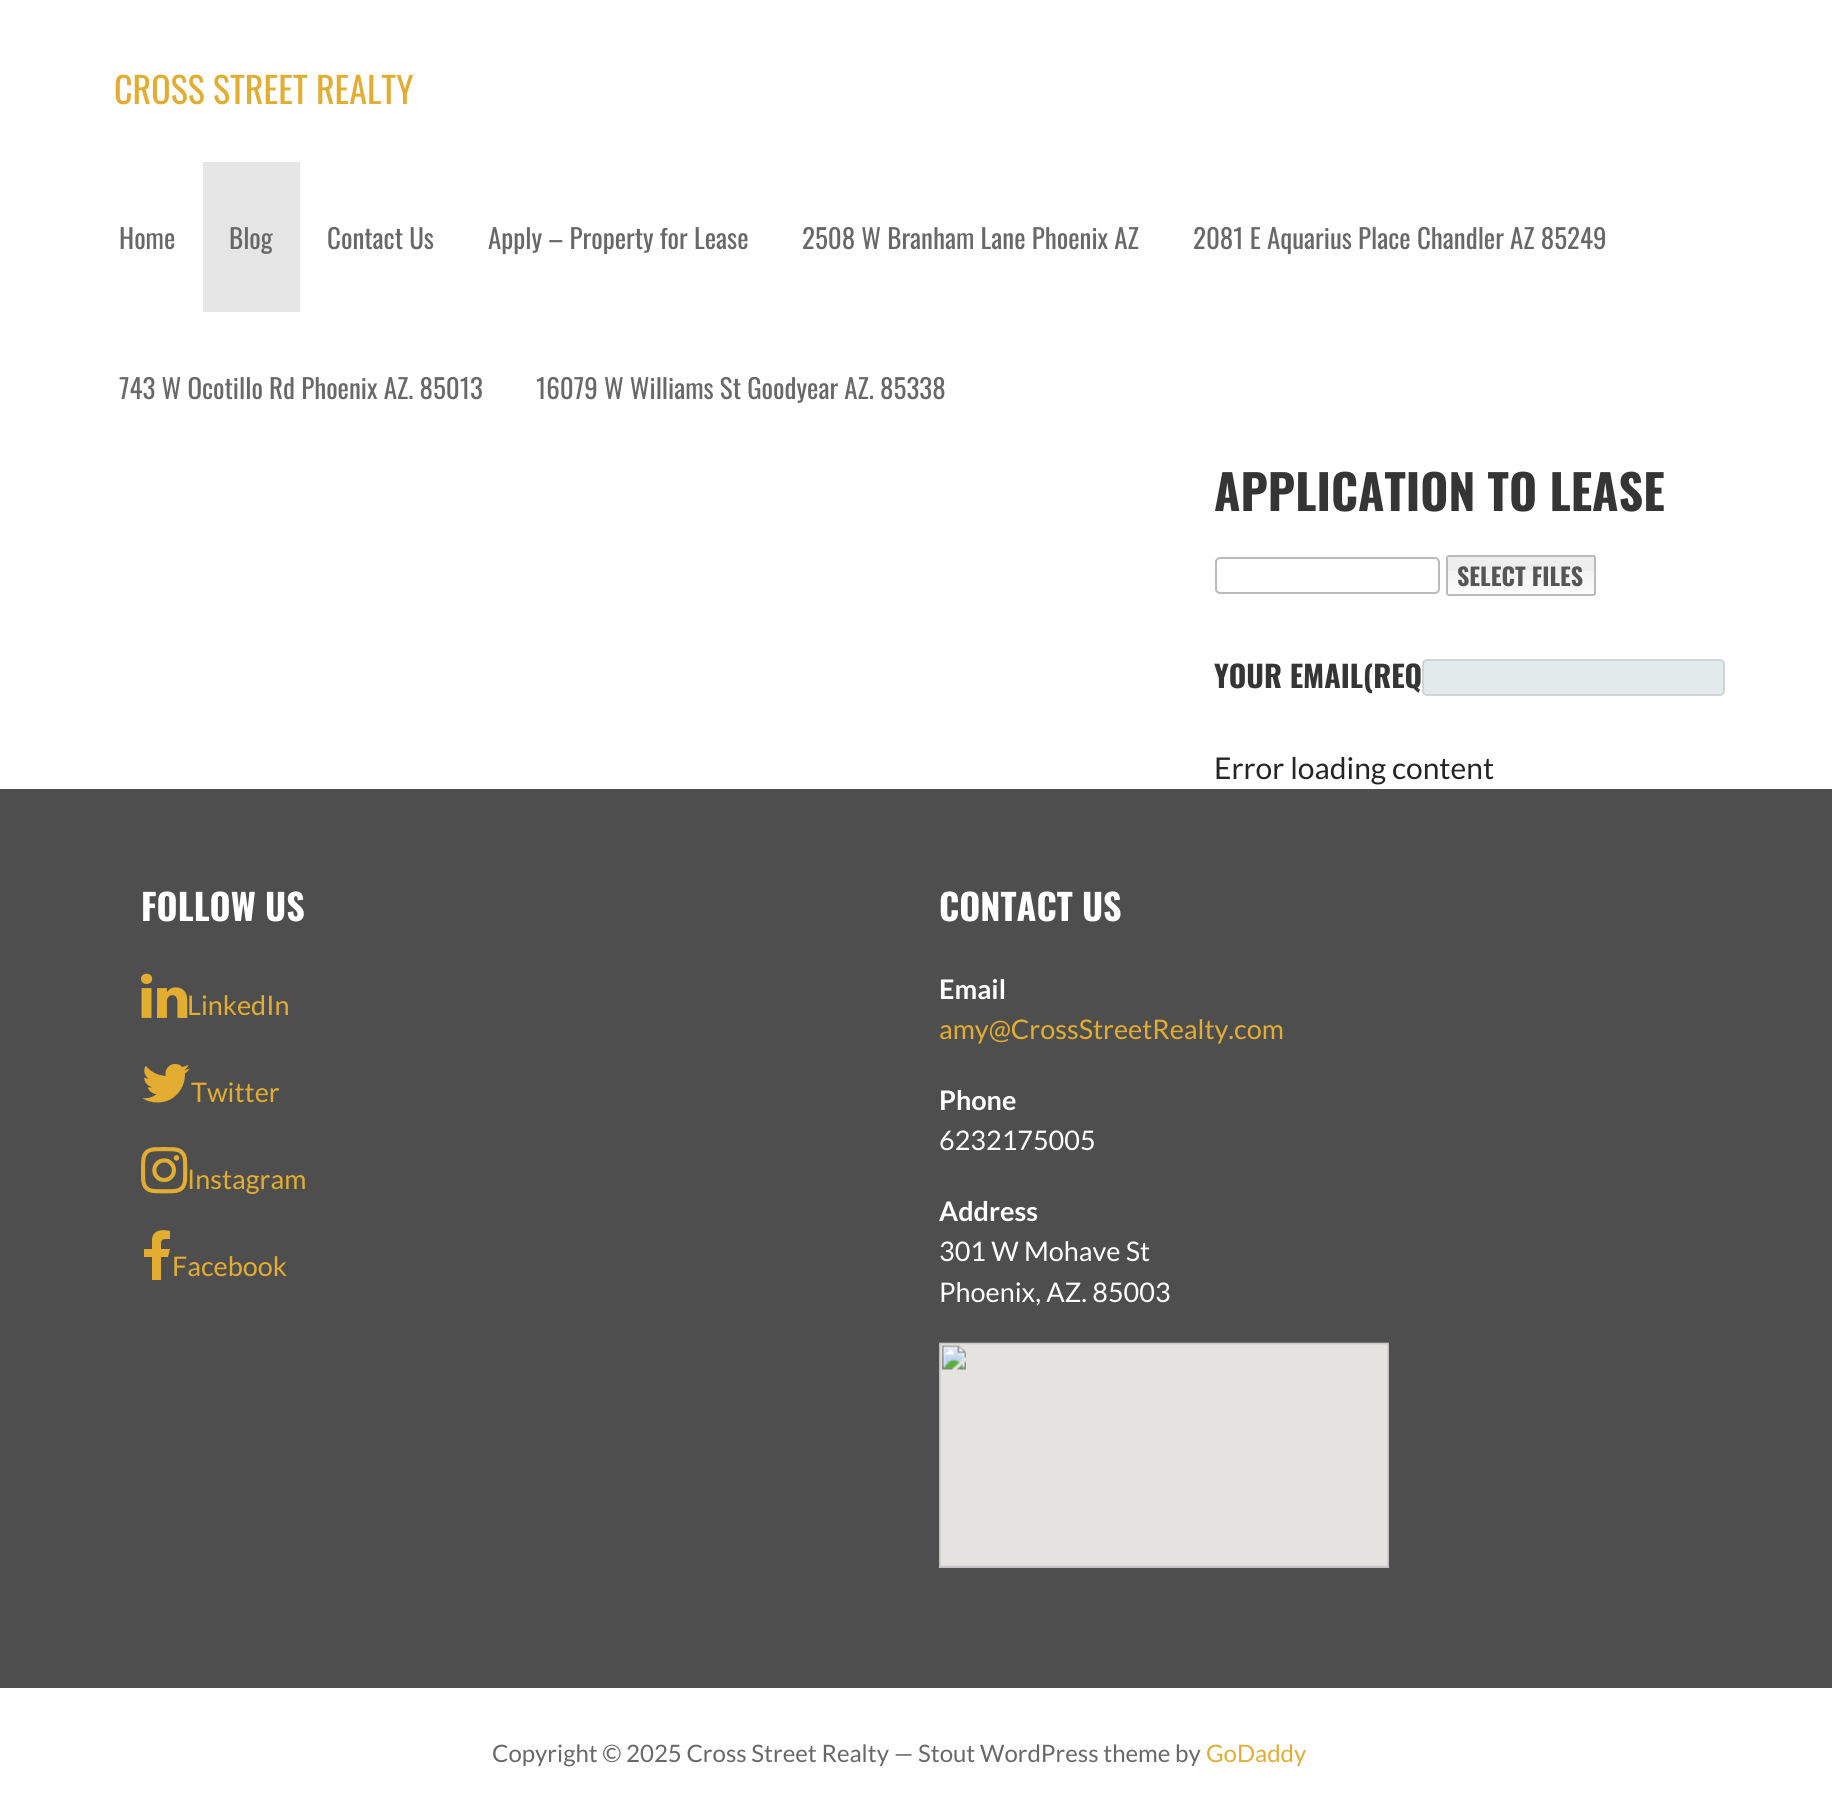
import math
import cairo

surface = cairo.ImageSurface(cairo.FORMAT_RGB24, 1832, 1793)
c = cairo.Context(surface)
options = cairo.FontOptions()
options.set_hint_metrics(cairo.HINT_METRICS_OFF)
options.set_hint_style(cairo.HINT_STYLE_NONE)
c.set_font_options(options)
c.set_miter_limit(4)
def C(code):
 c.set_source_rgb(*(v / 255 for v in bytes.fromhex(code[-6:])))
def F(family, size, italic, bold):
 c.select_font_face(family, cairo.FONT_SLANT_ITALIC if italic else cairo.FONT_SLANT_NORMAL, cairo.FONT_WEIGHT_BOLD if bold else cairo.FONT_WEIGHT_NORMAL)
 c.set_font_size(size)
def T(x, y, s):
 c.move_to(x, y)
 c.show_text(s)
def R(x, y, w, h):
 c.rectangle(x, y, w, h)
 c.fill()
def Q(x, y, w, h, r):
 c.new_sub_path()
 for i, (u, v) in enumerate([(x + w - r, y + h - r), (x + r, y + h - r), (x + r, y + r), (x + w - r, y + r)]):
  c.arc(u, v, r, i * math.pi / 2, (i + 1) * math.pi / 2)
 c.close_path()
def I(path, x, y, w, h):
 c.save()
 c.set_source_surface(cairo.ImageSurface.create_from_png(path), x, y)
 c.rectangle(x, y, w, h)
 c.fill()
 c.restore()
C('ffffff')
c.paint()
F('Oswald',36,0,0)
C('e3ad31')
T(114,104,'CROSS STREET REALTY')
F('Oswald',27,0,0)
C('686868')
T(119,249,'Home')
C('e6e6e6')
R(203,162,97,150)
C('686868')
T(229,249,'Blog')
T(327,249,'Contact Us')
T(488,249,'Apply – Property for Lease')
T(802,249,'2508 W Branham Lane Phoenix AZ')
T(1193,249,'2081 E Aquarius Place Chandler AZ 85249')
T(119,399,'743 W Ocotillo Rd Phoenix AZ. 85013')
T(536,399,'16079 W Williams St Goodyear AZ. 85338')
F('Oswald',48,0,1)
C('353535')
T(1214,511,'APPLICATION TO LEASE')
Q(1216,558,223,35,4)
C('bbbbbb')
c.stroke()
C('eeeeee')
Q(1446,555,150,41,3)
c.fill()
I('1.png',1446,571,150,24)
Q(1447,556,148,39,2)
C('bbbbbb')
c.stroke()
F('Oswald',24,0,1)
C('555555')
T(1457,586,'SELECT FILES')
F('Oswald',30,0,1)
C('353535')
T(1214,688,'YOUR EMAIL(REQ')
C('e3eaeb')
Q(1422,659,303,37,5)
c.fill()
Q(1423,660,301,35,4)
c.set_source_rgba(0.145,0.145,0.145,0.1)
c.stroke()
F('Lato',30,0,0)
C('252525')
T(1214,779,'Error loading content')
C('4e4e4e')
R(0,789,1832,899)
F('Oswald',36,0,1)
C('ffffff')
T(141,921,'FOLLOW US')
I('2.png',141,973,47,45)
F('Lato',27,0,0)
C('e3ad31')
T(187,1015,'LinkedIn')
I('3.png',142,1063,48,40)
T(191,1102,'Twitter')
I('4.png',141,1147,47,47)
T(187,1189,'Instagram')
c.new_path()
c.move_to(170,1231)
c.line_to(170,1239)
c.curve_to(160,1239,161,1239,161,1249)
c.line_to(170,1249)
c.line_to(168,1257)
c.line_to(161,1257)
c.line_to(161,1280)
c.line_to(152,1280)
c.line_to(152,1257)
c.line_to(144,1257)
c.line_to(144,1249)
c.line_to(152,1249)
c.line_to(152,1239)
c.curve_to(153,1230,162,1229,170,1231)
c.close_path()
c.fill()
T(172,1276,'Facebook')
F('Oswald',36,0,1)
C('ffffff')
T(939,921,'CONTACT US')
F('Lato',27,0,1)
T(939,999,'Email')
F('Lato',27,0,0)
C('e3ad31')
T(939,1039,'amy@CrossStreetRealty.com')
F('Lato',27,0,1)
C('ffffff')
T(939,1110,'Phone')
F('Lato',27,0,0)
T(939,1150,'6232175005')
F('Lato',27,0,1)
T(939,1221,'Address')
F('Lato',27,0,0)
T(939,1261,'301 W Mohave St')
T(939,1302,'Phoenix, AZ. 85003')
I('5.png',939,1342,450,226)
F('Lato',24,0,0)
C('686868')
T(492,1762,'Copyright © 2025 Cross Street Realty — Stout WordPress theme by')
C('e3ad31')
T(1206,1762,'GoDaddy')
surface.write_to_png('o.png')
